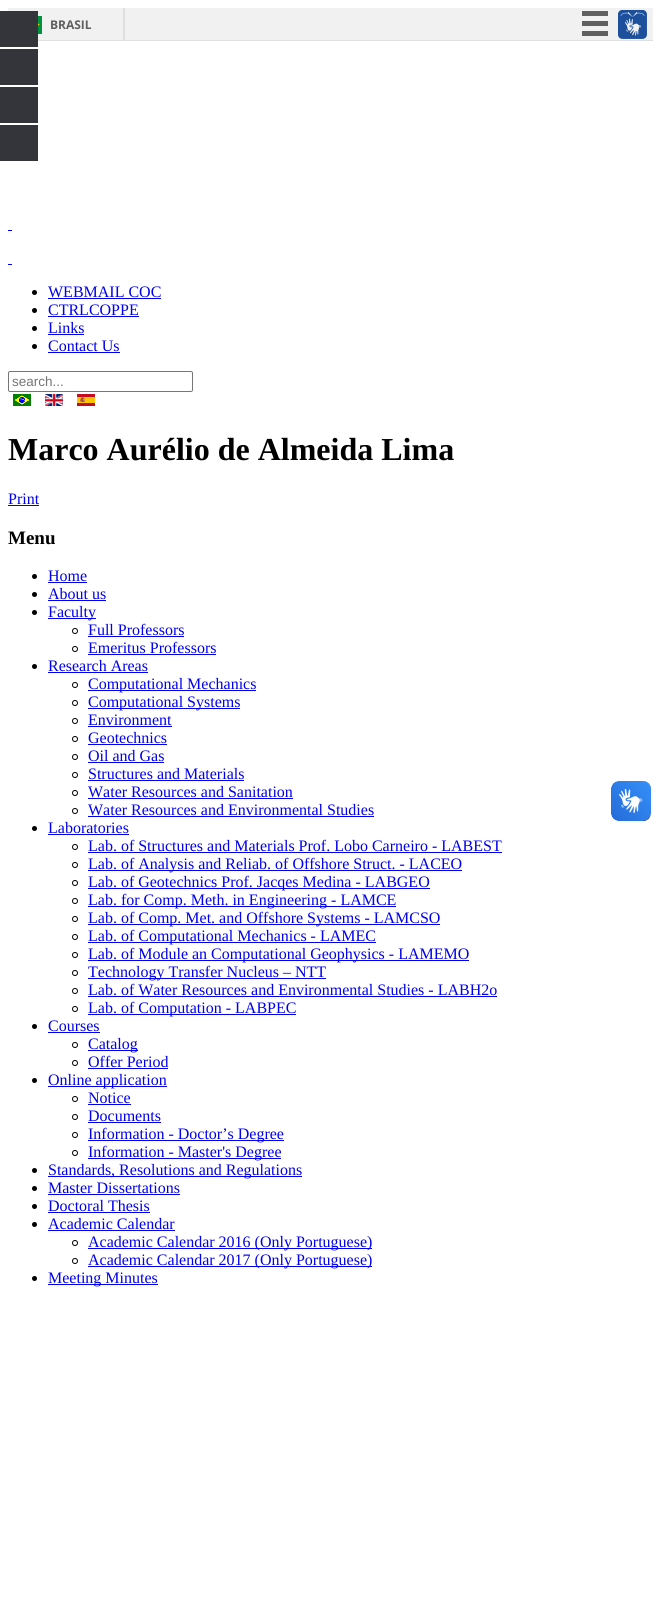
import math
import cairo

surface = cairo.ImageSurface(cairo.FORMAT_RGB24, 661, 1602)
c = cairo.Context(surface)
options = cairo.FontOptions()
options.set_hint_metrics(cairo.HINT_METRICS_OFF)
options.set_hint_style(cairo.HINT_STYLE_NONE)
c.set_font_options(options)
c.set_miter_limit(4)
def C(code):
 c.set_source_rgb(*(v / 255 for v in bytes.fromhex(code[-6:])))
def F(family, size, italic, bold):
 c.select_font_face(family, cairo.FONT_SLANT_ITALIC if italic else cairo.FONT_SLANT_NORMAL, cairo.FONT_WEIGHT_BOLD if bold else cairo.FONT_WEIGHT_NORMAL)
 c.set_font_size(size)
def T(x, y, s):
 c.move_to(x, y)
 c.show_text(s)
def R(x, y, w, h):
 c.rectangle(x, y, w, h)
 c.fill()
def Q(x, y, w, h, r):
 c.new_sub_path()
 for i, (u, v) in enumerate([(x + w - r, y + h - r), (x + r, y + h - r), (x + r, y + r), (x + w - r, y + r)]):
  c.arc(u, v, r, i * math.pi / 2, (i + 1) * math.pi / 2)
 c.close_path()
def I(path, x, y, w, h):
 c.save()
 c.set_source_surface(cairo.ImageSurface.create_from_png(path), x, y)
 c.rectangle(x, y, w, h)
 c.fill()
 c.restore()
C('ffffff')
c.paint()
C('f1f1f1')
R(8,8,645,32)
C('dfdfdf')
R(38,40,615,1)
R(123,8,2,32)
I('1.png',38,16,4,18)
F('Open Sans',12,0,1)
C('606060')
T(50,29,'BRASIL')
R(582,11,26,5)
R(582,21,26,5)
R(582,31,26,5)
I('2.png',618,10,29,29)
C('0000ee')
R(8,230,4,1)
R(8,264,4,1)
C('000000')
c.arc(34.5,292.5,2.5,0,2 * math.pi)
c.fill()
F('Liberation Serif',16,0,0)
C('0000ee')
T(48,297,'WEBMAIL COC')
R(48,298,113,1)
C('000000')
c.new_path()
c.arc(34.5,310.5,2.5,0,2 * math.pi)
c.fill()
C('0000ee')
T(48,315,'CTRLCOPPE')
R(48,316,91,1)
C('000000')
c.new_path()
c.arc(34.5,328.5,2.5,0,2 * math.pi)
c.fill()
C('0000ee')
T(48,333,'Links')
R(48,334,36,1)
C('000000')
c.new_path()
c.arc(34.5,346.5,2.5,0,2 * math.pi)
c.fill()
C('0000ee')
T(48,351,'Contact Us')
R(48,352,72,1)
Q(8.5,371.5,184,20,1.5)
C('767676')
c.set_line_width(1)
c.stroke()
F('Liberation Sans',13.5,0,0)
C('757575')
T(12,386,'search...')
I('3.png',13,394,18,12)
I('4.png',45,394,18,12)
I('5.png',77,394,18,12)
C('33353b')
R(0,11,38,36)
R(0,49,38,36)
R(0,87,38,36)
R(0,125,38,36)
F('Liberation Serif',32,0,1)
C('000000')
T(8,460,'Marco Aurélio de Almeida Lima')
F('Liberation Serif',16,0,0)
C('0000ee')
T(8,504,'Print')
R(8,505,31,1)
F('Liberation Serif',19,0,1)
C('000000')
T(8,544,'Menu')
c.new_path()
c.arc(34.5,576.5,2.5,0,2 * math.pi)
c.fill()
F('Liberation Serif',16,0,0)
C('0000ee')
T(48,581,'Home')
R(48,582,39,1)
C('000000')
c.new_path()
c.arc(34.5,594.5,2.5,0,2 * math.pi)
c.fill()
C('0000ee')
T(48,599,'About us')
R(48,600,58,1)
C('000000')
c.new_path()
c.arc(34.5,612.5,2.5,0,2 * math.pi)
c.fill()
C('0000ee')
R(48,618,48,1)
T(48,617,'Faculty')
c.new_path()
c.arc(75,631,2.5,0,2 * math.pi)
C('000000')
c.stroke()
C('0000ee')
T(88,635,'Full Professors')
R(88,636,96,1)
c.new_path()
c.arc(75,649,2.5,0,2 * math.pi)
C('000000')
c.stroke()
C('0000ee')
T(88,653,'Emeritus Professors')
R(88,654,128,1)
C('000000')
c.new_path()
c.arc(34.5,666.5,2.5,0,2 * math.pi)
c.fill()
C('0000ee')
T(48,671,'Research Areas')
R(48,672,100,1)
c.new_path()
c.arc(75,685,2.5,0,2 * math.pi)
C('000000')
c.stroke()
C('0000ee')
R(88,690,168,1)
T(88,689,'Computational Mechanics')
c.new_path()
c.arc(75,703,2.5,0,2 * math.pi)
C('000000')
c.stroke()
C('0000ee')
R(88,708,152,1)
T(88,707,'Computational Systems')
c.new_path()
c.arc(75,721,2.5,0,2 * math.pi)
C('000000')
c.stroke()
C('0000ee')
T(88,725,'Environment')
R(88,726,84,1)
c.new_path()
c.arc(75,739,2.5,0,2 * math.pi)
C('000000')
c.stroke()
C('0000ee')
T(88,743,'Geotechnics')
R(88,744,79,1)
c.new_path()
c.arc(75,757,2.5,0,2 * math.pi)
C('000000')
c.stroke()
C('0000ee')
T(88,761,'Oil and Gas')
R(88,762,76,1)
c.new_path()
c.arc(75,775,2.5,0,2 * math.pi)
C('000000')
c.stroke()
C('0000ee')
T(88,779,'Structures and Materials')
R(88,780,156,1)
c.new_path()
c.arc(75,793,2.5,0,2 * math.pi)
C('000000')
c.stroke()
C('0000ee')
T(88,797,'Water Resources and Sanitation')
R(88,798,205,1)
c.new_path()
c.arc(75,811,2.5,0,2 * math.pi)
C('000000')
c.stroke()
C('0000ee')
T(88,815,'Water Resources and Environmental Studies')
R(88,816,286,1)
C('000000')
c.new_path()
c.arc(34.5,828.5,2.5,0,2 * math.pi)
c.fill()
C('0000ee')
T(48,833,'Laboratories')
R(48,834,81,1)
c.new_path()
c.arc(75,847,2.5,0,2 * math.pi)
C('000000')
c.stroke()
C('0000ee')
T(88,851,'Lab. of Structures and Materials Prof. Lobo Carneiro - LABEST')
R(88,852,414,1)
c.new_path()
c.arc(75,865,2.5,0,2 * math.pi)
C('000000')
c.stroke()
C('0000ee')
R(88,870,374,1)
T(88,869,'Lab. of Analysis and Reliab. of Offshore Struct. - LACEO')
c.new_path()
c.arc(75,883,2.5,0,2 * math.pi)
C('000000')
c.stroke()
C('0000ee')
R(88,888,342,1)
T(88,887,'Lab. of Geotechnics Prof. Jacqes Medina - LABGEO')
c.new_path()
c.arc(75,901,2.5,0,2 * math.pi)
C('000000')
c.stroke()
C('0000ee')
R(88,906,308,1)
T(88,905,'Lab. for Comp. Meth. in Engineering - LAMCE')
c.new_path()
c.arc(75,919,2.5,0,2 * math.pi)
C('000000')
c.stroke()
C('0000ee')
R(88,924,352,1)
T(88,923,'Lab. of Comp. Met. and Offshore Systems - LAMCSO')
c.new_path()
c.arc(75,937,2.5,0,2 * math.pi)
C('000000')
c.stroke()
C('0000ee')
R(88,942,288,1)
T(88,941,'Lab. of Computational Mechanics - LAMEC')
c.new_path()
c.arc(75,955,2.5,0,2 * math.pi)
C('000000')
c.stroke()
C('0000ee')
R(88,960,381,1)
T(88,959,'Lab. of Module an Computational Geophysics - LAMEMO')
c.new_path()
c.arc(75,973,2.5,0,2 * math.pi)
C('000000')
c.stroke()
C('0000ee')
R(88,978,238,1)
T(88,977,'Technology Transfer Nucleus – NTT')
c.new_path()
c.arc(75,991,2.5,0,2 * math.pi)
C('000000')
c.stroke()
C('0000ee')
T(88,995,'Lab. of Water Resources and Environmental Studies - LABH2o')
R(88,996,409,1)
c.new_path()
c.arc(75,1009,2.5,0,2 * math.pi)
C('000000')
c.stroke()
C('0000ee')
R(88,1014,208,1)
T(88,1013,'Lab. of Computation - LABPEC')
C('000000')
c.new_path()
c.arc(34.5,1026.5,2.5,0,2 * math.pi)
c.fill()
C('0000ee')
T(48,1031,'Courses')
R(48,1032,52,1)
c.new_path()
c.arc(75,1045,2.5,0,2 * math.pi)
C('000000')
c.stroke()
C('0000ee')
R(88,1050,50,1)
T(88,1049,'Catalog')
c.new_path()
c.arc(75,1063,2.5,0,2 * math.pi)
C('000000')
c.stroke()
C('0000ee')
T(88,1067,'Offer Period')
R(88,1068,80,1)
C('000000')
c.new_path()
c.arc(34.5,1080.5,2.5,0,2 * math.pi)
c.fill()
C('0000ee')
R(48,1086,119,1)
T(48,1085,'Online application')
c.new_path()
c.arc(75,1099,2.5,0,2 * math.pi)
C('000000')
c.stroke()
C('0000ee')
T(88,1103,'Notice')
R(88,1104,43,1)
c.new_path()
c.arc(75,1117,2.5,0,2 * math.pi)
C('000000')
c.stroke()
C('0000ee')
T(88,1121,'Documents')
R(88,1122,73,1)
c.new_path()
c.arc(75,1135,2.5,0,2 * math.pi)
C('000000')
c.stroke()
C('0000ee')
R(88,1140,196,1)
T(88,1139,'Information - Doctor’s Degree')
c.new_path()
c.arc(75,1153,2.5,0,2 * math.pi)
C('000000')
c.stroke()
C('0000ee')
R(88,1158,193,1)
T(88,1157,'Information - Master\'s Degree')
C('000000')
c.new_path()
c.arc(34.5,1170.5,2.5,0,2 * math.pi)
c.fill()
C('0000ee')
R(48,1176,254,1)
T(48,1175,'Standards, Resolutions and Regulations')
C('000000')
c.new_path()
c.arc(34.5,1188.5,2.5,0,2 * math.pi)
c.fill()
C('0000ee')
T(48,1193,'Master Dissertations')
R(48,1194,132,1)
C('000000')
c.new_path()
c.arc(34.5,1206.5,2.5,0,2 * math.pi)
c.fill()
C('0000ee')
T(48,1211,'Doctoral Thesis')
R(48,1212,102,1)
C('000000')
c.new_path()
c.arc(34.5,1224.5,2.5,0,2 * math.pi)
c.fill()
C('0000ee')
T(48,1229,'Academic Calendar')
R(48,1230,127,1)
c.new_path()
c.arc(75,1243,2.5,0,2 * math.pi)
C('000000')
c.stroke()
C('0000ee')
R(88,1248,284,1)
T(88,1247,'Academic Calendar 2016 (Only Portuguese)')
c.new_path()
c.arc(75,1261,2.5,0,2 * math.pi)
C('000000')
c.stroke()
C('0000ee')
R(88,1266,284,1)
T(88,1265,'Academic Calendar 2017 (Only Portuguese)')
C('000000')
c.new_path()
c.arc(34.5,1278.5,2.5,0,2 * math.pi)
c.fill()
C('0000ee')
R(48,1284,110,1)
T(48,1283,'Meeting Minutes')
I('6.png',611,781,40,40)
I('7.png',611,781,40,40)
surface.write_to_png('o.png')
